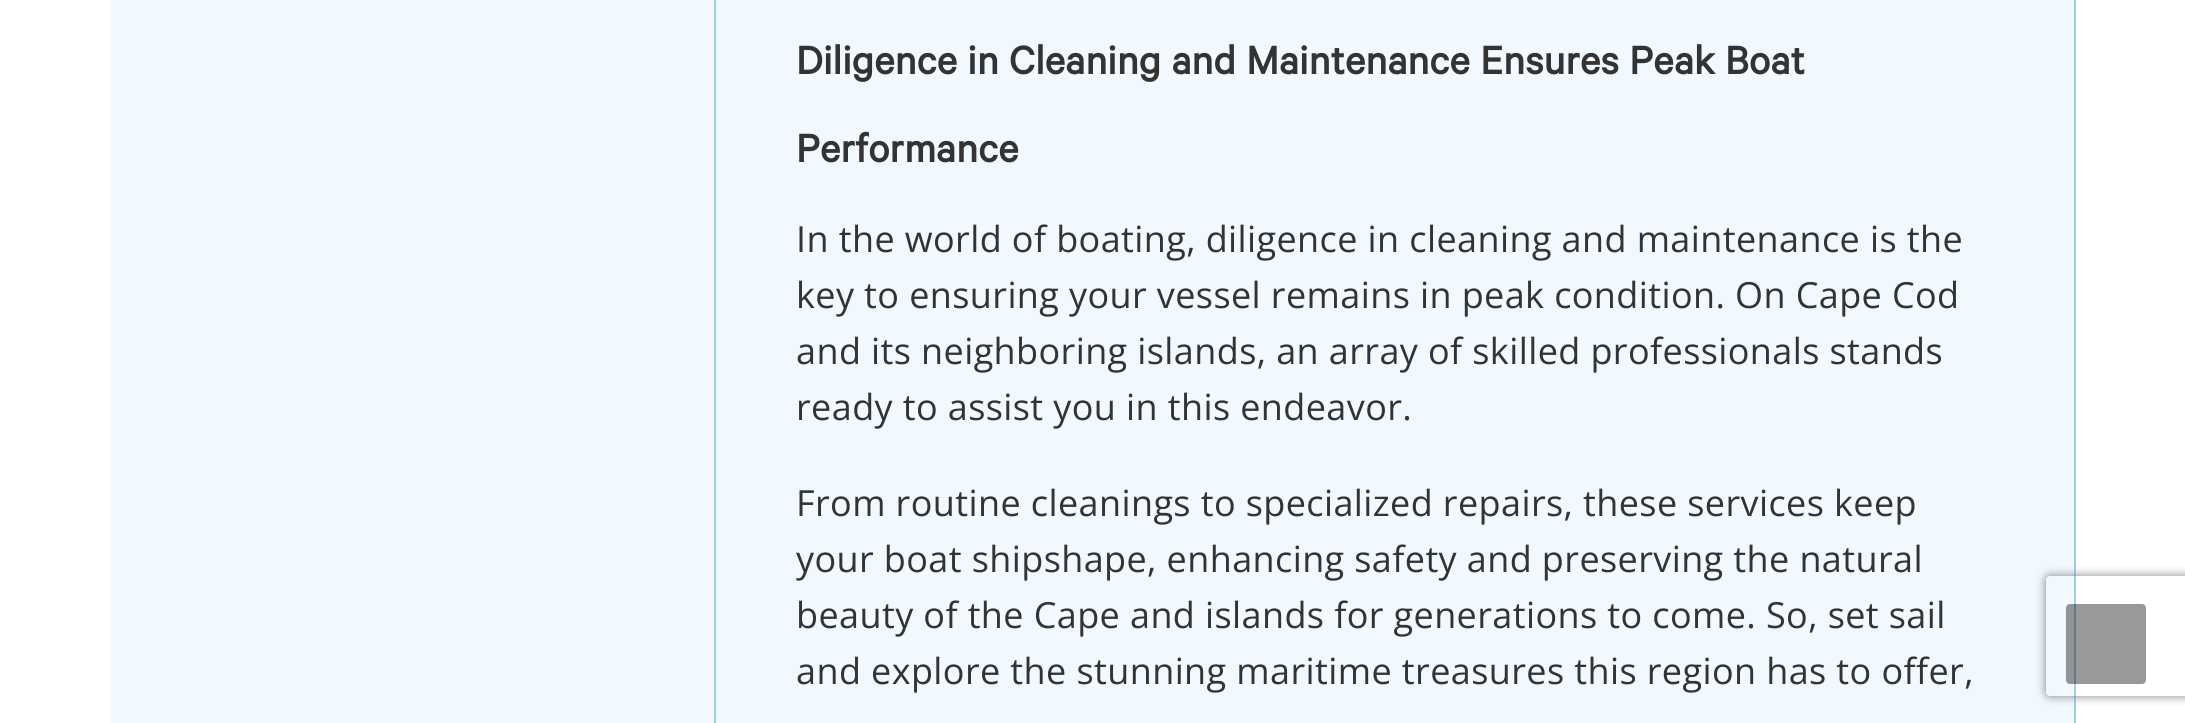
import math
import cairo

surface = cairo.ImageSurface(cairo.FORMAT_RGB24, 2185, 723)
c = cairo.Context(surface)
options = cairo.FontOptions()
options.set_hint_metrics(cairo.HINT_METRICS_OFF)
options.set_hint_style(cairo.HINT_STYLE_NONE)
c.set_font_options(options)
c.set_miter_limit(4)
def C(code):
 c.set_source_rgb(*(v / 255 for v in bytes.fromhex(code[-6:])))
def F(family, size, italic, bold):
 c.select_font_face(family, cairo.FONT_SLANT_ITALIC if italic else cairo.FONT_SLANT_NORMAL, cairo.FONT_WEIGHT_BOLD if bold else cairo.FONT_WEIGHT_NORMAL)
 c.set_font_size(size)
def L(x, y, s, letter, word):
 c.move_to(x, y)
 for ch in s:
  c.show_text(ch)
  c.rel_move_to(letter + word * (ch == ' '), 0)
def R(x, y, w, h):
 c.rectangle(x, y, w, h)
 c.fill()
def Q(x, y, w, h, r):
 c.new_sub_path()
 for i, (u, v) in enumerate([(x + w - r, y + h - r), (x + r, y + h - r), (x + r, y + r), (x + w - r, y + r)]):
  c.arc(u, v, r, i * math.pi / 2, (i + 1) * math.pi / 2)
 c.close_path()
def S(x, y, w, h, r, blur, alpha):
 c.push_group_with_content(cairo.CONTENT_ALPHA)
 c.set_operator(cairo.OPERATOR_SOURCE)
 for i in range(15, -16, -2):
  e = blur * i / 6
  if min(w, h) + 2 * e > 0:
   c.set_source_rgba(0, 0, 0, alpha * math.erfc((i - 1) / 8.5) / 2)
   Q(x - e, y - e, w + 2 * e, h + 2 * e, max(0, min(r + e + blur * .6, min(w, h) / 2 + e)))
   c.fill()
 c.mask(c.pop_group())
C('ffffff')
c.paint()
C('f1f9fe')
R(110,0,1964,723)
c.rectangle(715,-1,1360,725)
C('a2cde2')
c.stroke()
F('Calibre',44,0,1)
C('333333')
L(796,74,'Diligence in Cleaning and Maintenance Ensures Peak Boat',.4,0)
L(796,162,'Performance',.4,0)
F('Open Sans',36,0,0)
L(796,252,'In the world of boating, diligence in cleaning and maintenance is the',.4,0)
L(796,308,'key to ensuring your vessel remains in peak condition. On Cape Cod',.4,0)
L(796,364,'and its neighboring islands, an array of skilled professionals stands',.4,0)
L(796,420,'ready to assist you in this endeavor.',.4,0)
L(796,516,'From routine cleanings to specialized repairs, these services keep',.4,0)
L(796,572,'your boat shipshape, enhancing safety and preserving the natural',.4,0)
L(796,628,'beauty of the Cape and islands for generations to come. So, set sail',.4,0)
L(796,684,'and explore the stunning maritime treasures this region has to offer,',.4,0)
c.save()
c.set_fill_rule(cairo.FILL_RULE_EVEN_ODD)
c.new_path()
c.move_to(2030,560)
c.line_to(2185,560)
c.line_to(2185,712)
c.line_to(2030,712)
c.close_path()
c.move_to(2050,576)
c.line_to(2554,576)
c.curve_to(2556,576,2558,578,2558,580)
c.line_to(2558,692)
c.curve_to(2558,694,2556,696,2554,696)
c.line_to(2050,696)
c.curve_to(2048,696,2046,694,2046,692)
c.line_to(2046,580)
c.curve_to(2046,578,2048,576,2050,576)
c.close_path()
c.clip()
C('808080')
S(2046,576,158,120,4,5,1)
c.restore()
c.set_source_rgba(0,0,0,0.4)
Q(2066,604,80,80,4)
c.fill()
surface.write_to_png('o.png')
